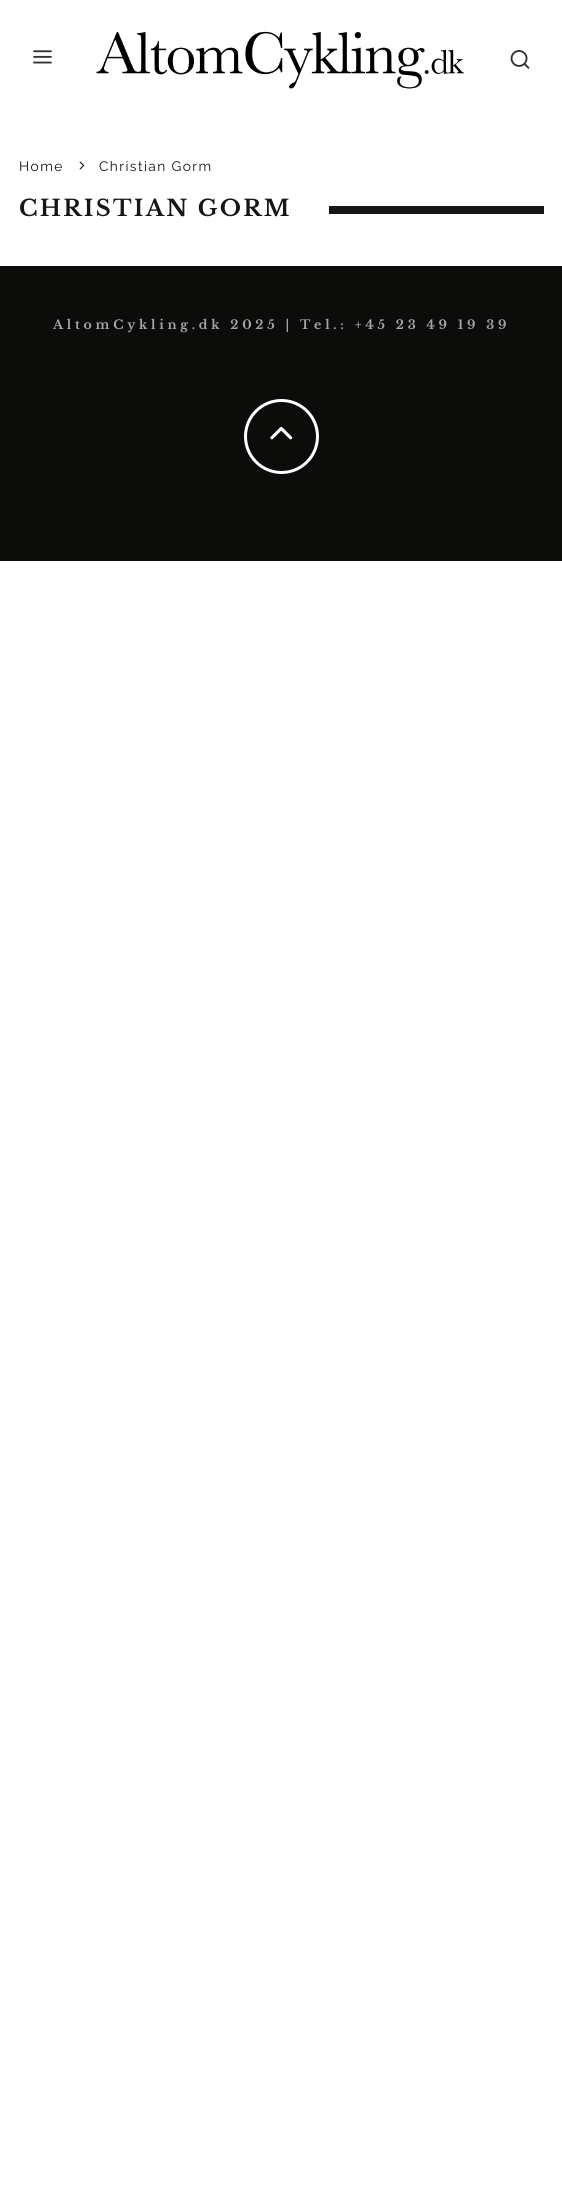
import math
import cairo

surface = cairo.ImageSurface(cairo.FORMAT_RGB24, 562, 2190)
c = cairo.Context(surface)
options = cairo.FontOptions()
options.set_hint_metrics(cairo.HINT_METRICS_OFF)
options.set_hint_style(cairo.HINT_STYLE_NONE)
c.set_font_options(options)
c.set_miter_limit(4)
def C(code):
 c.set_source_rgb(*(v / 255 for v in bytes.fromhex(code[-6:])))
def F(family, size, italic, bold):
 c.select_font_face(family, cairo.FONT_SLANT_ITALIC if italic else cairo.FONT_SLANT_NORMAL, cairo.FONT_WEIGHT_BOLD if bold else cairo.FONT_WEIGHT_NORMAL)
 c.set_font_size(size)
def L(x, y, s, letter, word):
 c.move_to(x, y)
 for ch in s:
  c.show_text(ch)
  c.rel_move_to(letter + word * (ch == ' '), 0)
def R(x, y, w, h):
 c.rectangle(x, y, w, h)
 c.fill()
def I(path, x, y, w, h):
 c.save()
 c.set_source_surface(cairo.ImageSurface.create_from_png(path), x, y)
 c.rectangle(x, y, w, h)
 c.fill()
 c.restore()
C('ffffff')
c.paint()
I('1.png',33,50,19,14)
I('2.png',96,31,368,58)
I('3.png',510,50,20,19)
F('Raleway',13.75,0,0)
C('161616')
L(19,171,'Home',1.4,0)
I('4.png',79,161,6,9)
L(99,171,'Christian Gorm',1.4,0)
F('Libre Baskerville',22.5,0,1)
L(19,216,'CHRISTIAN GORM',2.25,0)
R(329,206,215,8)
C('0c0c0b')
R(0,266,562,295)
F('Libre Baskerville',12.5,0,1)
C('a6a6a6')
L(53,329,'AltomCykling.dk 2025 | Tel.: +45 23 49 19 39',3.75,0)
c.new_path()
c.arc(281.5,436.5,36,0,2 * math.pi)
C('ffffff')
c.set_line_width(3)
c.stroke()
I('5.png',270,426,23,14)
surface.write_to_png('o.png')
